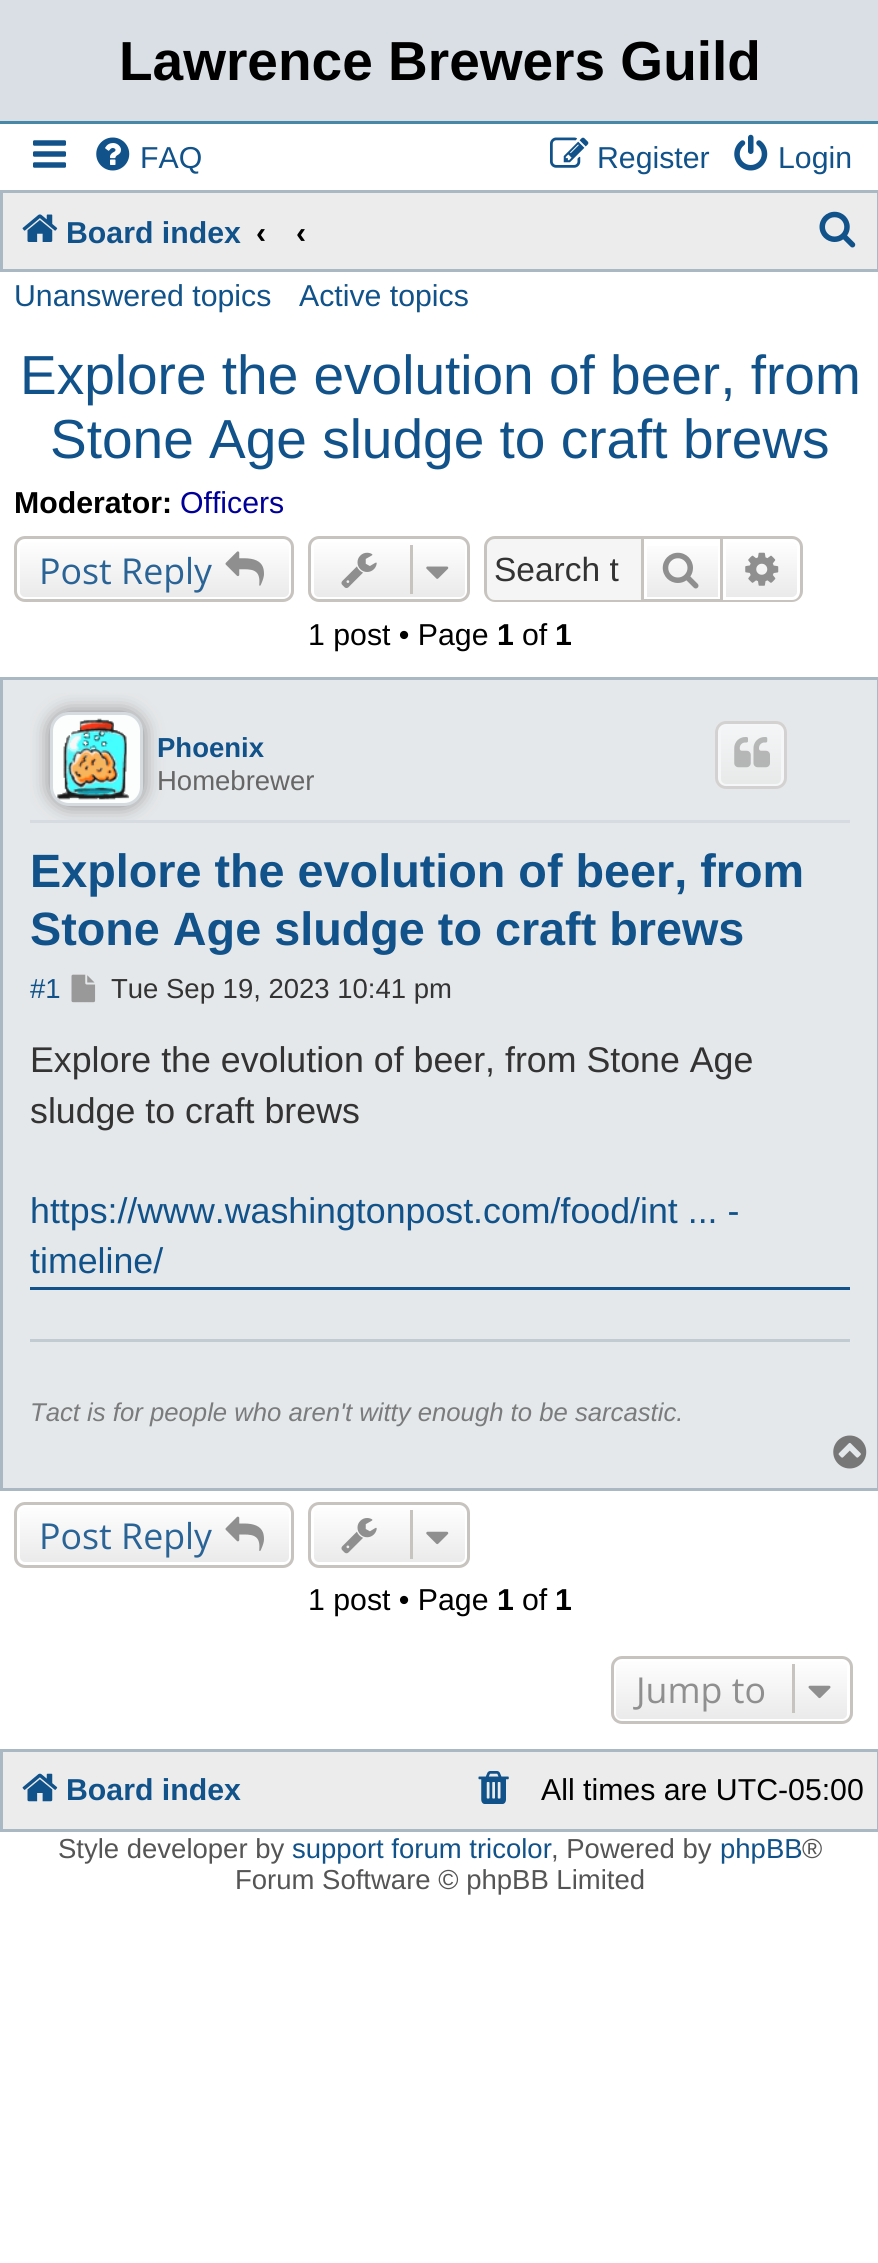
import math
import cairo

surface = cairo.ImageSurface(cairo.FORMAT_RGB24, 878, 2263)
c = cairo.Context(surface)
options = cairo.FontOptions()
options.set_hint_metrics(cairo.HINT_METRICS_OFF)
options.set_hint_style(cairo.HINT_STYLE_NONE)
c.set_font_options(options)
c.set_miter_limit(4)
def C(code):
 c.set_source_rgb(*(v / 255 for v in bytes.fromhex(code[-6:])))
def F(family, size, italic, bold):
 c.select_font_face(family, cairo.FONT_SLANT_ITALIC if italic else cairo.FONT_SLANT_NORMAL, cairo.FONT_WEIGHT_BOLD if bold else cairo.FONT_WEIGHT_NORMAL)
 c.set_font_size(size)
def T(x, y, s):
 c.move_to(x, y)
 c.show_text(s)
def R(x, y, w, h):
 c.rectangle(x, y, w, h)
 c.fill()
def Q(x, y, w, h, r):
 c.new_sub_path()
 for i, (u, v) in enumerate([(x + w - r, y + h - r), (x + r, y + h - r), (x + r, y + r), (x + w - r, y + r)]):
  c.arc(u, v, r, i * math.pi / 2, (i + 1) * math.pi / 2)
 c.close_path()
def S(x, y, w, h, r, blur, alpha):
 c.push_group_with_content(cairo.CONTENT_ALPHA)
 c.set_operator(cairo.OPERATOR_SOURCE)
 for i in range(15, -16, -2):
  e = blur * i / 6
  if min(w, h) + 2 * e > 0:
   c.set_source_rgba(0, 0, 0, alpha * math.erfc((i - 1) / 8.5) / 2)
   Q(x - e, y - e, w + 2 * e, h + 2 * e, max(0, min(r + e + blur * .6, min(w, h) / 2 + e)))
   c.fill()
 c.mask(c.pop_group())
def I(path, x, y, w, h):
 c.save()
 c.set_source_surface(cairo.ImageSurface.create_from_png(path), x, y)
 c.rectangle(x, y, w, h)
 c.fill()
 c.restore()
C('ffffff')
c.paint()
C('d9dfe4')
R(0,0,878,121)
C('4787a7')
R(0,121,878,3)
F('Liberation Sans',55,0,1)
C('000000')
T(119,80,'Lawrence Brewers Guild')
I('1.png',33,140,33,28)
I('2.png',96,137,34,34)
F('Liberation Sans',30.25,0,0)
C('105289')
T(140,168,'FAQ')
I('3.png',550,137,39,31)
T(597,168,'Register')
I('4.png',734,134,34,37)
T(778,168,'Login')
C('ececec')
c.rectangle(1.5,191.5,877,79)
c.fill_preserve()
C('a9b8c2')
c.set_line_width(3)
c.stroke()
I('5.png',22,214,36,28)
F('Liberation Sans',30.25,0,1)
C('105289')
T(66,243,'Board index')
C('000000')
T(256,243,'‹')
T(296,243,'‹')
I('6.png',819,211,37,37)
F('Liberation Sans',30.25,0,0)
C('105289')
T(14,306,'Unanswered topics')
T(299,306,'Active topics')
F('Liberation Sans',55,0,0)
T(20,394,'Explore the evolution of beer, from')
T(50,458,'Stone Age sludge to craft brews')
F('Liberation Sans',30.25,0,1)
C('000000')
T(14,513,'Moderator:')
F('Liberation Sans',30.25,0,0)
C('000099')
T(180,513,'Officers')
c.save()
Q(14,536,280,66,11)
c.clip()
gradient = cairo.LinearGradient(154,539,154,600)
gradient.add_color_stop_rgba(0,1,1,1,1)
gradient.add_color_stop_rgba(1,0.914,0.914,0.914,1)
c.set_source(gradient)
R(14,539,280,61)
c.restore()
Q(18.5,540.5,272,58,6.5)
C('ffffff')
c.stroke()
Q(15.5,537.5,277,63,9.5)
C('c7c3bf')
c.stroke()
F('Open Sans',35.75,0,0)
C('2a6496')
T(39,584,'Post Reply')
I('7.png',225,551,39,35)
c.save()
Q(308,536,162,66,11)
c.clip()
gradient = cairo.LinearGradient(389,539,389,600)
gradient.add_color_stop_rgba(0,1,1,1,1)
gradient.add_color_stop_rgba(1,0.914,0.914,0.914,1)
c.set_source(gradient)
R(308,539,162,61)
c.restore()
Q(312.5,540.5,154,58,6.5)
C('ffffff')
c.stroke()
Q(309.5,537.5,159,63,9.5)
C('c7c3bf')
c.stroke()
I('8.png',341,552,36,36)
R(410,545,3,49)
I('9.png',426,566,23,13)
C('f5f5f5')
c.new_path()
c.move_to(495,539)
c.line_to(641,539)
c.line_to(641,600)
c.line_to(495,600)
c.curve_to(490.5,600,487,596.5,487,592)
c.line_to(487,547)
c.curve_to(487,542.5,490.5,539,495,539)
c.close_path()
c.fill()
C('c7c3bf')
c.set_fill_rule(cairo.FILL_RULE_EVEN_ODD)
c.new_path()
c.move_to(495,536)
c.line_to(641,536)
c.line_to(641,602)
c.line_to(495,602)
c.curve_to(489,602,484,597,484,591)
c.line_to(484,547)
c.curve_to(484,541,489,536,495,536)
c.close_path()
c.move_to(495,539)
c.line_to(641,539)
c.line_to(641,600)
c.line_to(495,600)
c.curve_to(490,600,487,596,487,591)
c.line_to(487,547)
c.curve_to(487,543,490,539,495,539)
c.close_path()
c.fill()
F('Liberation Sans',33.5,0,0)
C('333333')
T(494,581,'Search t')
gradient = cairo.LinearGradient(682,539,682,600)
gradient.add_color_stop_rgba(0,1,1,1,1)
gradient.add_color_stop_rgba(1,0.914,0.914,0.914,1)
c.set_source(gradient)
R(647,546,71,51)
c.rectangle(642.5,537.5,79,63)
C('c7c3bf')
c.stroke()
I('10.png',662,552,37,37)
gradient = cairo.LinearGradient(762,539,762,600)
gradient.add_color_stop_rgba(0,1,1,1,1)
gradient.add_color_stop_rgba(1,0.914,0.914,0.914,1)
c.set_source(gradient)
c.new_path()
c.move_to(724.5,540.5)
c.line_to(792,540.5)
c.curve_to(795.5,540.5,798.5,543.5,798.5,547)
c.line_to(798.5,592)
c.curve_to(798.5,595.5,795.5,598.5,792,598.5)
c.line_to(724.5,598.5)
c.close_path()
c.fill_preserve()
C('ffffff')
c.stroke()
C('c7c3bf')
c.new_path()
c.move_to(723,536)
c.line_to(792,536)
c.curve_to(798,536,803,541,803,547)
c.line_to(803,591)
c.curve_to(803,597,798,602,792,602)
c.line_to(723,602)
c.close_path()
c.move_to(723,539)
c.line_to(792,539)
c.curve_to(797,539,800,543,800,547)
c.line_to(800,591)
c.curve_to(800,596,797,600,792,600)
c.line_to(723,600)
c.close_path()
c.fill()
I('11.png',745,552,34,34)
F('Liberation Sans',30.25,0,0)
C('000000')
T(308,645,'1 post • Page')
F('Liberation Sans',30.25,0,1)
T(497,645,'1')
F('Liberation Sans',30.25,0,0)
T(522,645,'of')
F('Liberation Sans',30.25,0,1)
T(555,645,'1')
C('e5e8ea')
c.rectangle(1.5,678.5,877,811)
c.fill_preserve()
C('a9b8c2')
c.stroke()
C('d5dbe0')
R(30,820,820,3)
c.save()
c.set_fill_rule(cairo.FILL_RULE_WINDING)
c.rectangle(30,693,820,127)
c.clip()
C('808080')
S(50,712,93,94,19,9.5,.9)
c.restore()
C('fcfdfd')
Q(51.5,713.5,90,91,17.5)
c.fill_preserve()
C('d5dbdf')
c.stroke()
I('12.png',57,718,73,82)
F('Liberation Sans',27.5,0,1)
C('105289')
T(157,757,'Phoenix')
F('Liberation Sans',27.5,0,0)
C('666666')
T(157,790,'Homebrewer')
c.save()
c.set_fill_rule(cairo.FILL_RULE_WINDING)
Q(715,721,72,68,11)
c.clip()
gradient = cairo.LinearGradient(751,723,751,787)
gradient.add_color_stop_rgba(0,0.961,0.965,0.969,1)
gradient.add_color_stop_rgba(1,0.906,0.914,0.914,1)
c.set_source(gradient)
R(715,723,72,64)
c.restore()
Q(719.5,724.5,63,61,6.5)
C('f5f6f7')
c.stroke()
Q(716.5,722.5,69,65,9.5)
C('d3d2d0')
c.stroke()
I('13.png',734,737,36,31)
F('Liberation Sans',46.75,0,1)
C('105289')
T(30,887,'Explore the evolution of beer, from')
T(30,945,'Stone Age sludge to craft brews')
F('Liberation Sans',27.5,0,0)
T(30,998,'#1')
I('14.png',71,974,25,29)
C('333333')
T(111,998,'Tue Sep 19, 2023 10:41 pm')
F('Liberation Sans',35.75,0,0)
T(30,1072,'Explore the evolution of beer, from Stone Age')
T(30,1123,'sludge to craft brews')
C('105289')
R(30,1287,820,3)
T(30,1223,'https://www.washingtonpost.com/food/int ... -')
T(30,1273,'timeline/')
C('c1cbd2')
R(30,1339,820,3)
F('Liberation Sans',25.7,1,0)
C('7a7b7c')
T(30,1421,'Tact is for people who aren\'t witty enough to be sarcastic.')
I('15.png',833,1435,34,34)
c.save()
c.set_fill_rule(cairo.FILL_RULE_WINDING)
Q(14,1502,280,66,11)
c.clip()
gradient = cairo.LinearGradient(154,1504,154,1565)
gradient.add_color_stop_rgba(0,1,1,1,1)
gradient.add_color_stop_rgba(1,0.914,0.914,0.914,1)
c.set_source(gradient)
R(14,1504,280,61)
c.restore()
Q(18.5,1505.5,272,58,6.5)
C('ffffff')
c.stroke()
Q(15.5,1503.5,277,63,9.5)
C('c7c3bf')
c.stroke()
F('Open Sans',35.75,0,0)
C('2a6496')
T(39,1549,'Post Reply')
I('16.png',225,1516,39,35)
c.save()
c.set_fill_rule(cairo.FILL_RULE_WINDING)
Q(308,1502,162,66,11)
c.clip()
gradient = cairo.LinearGradient(389,1504,389,1565)
gradient.add_color_stop_rgba(0,1,1,1,1)
gradient.add_color_stop_rgba(1,0.914,0.914,0.914,1)
c.set_source(gradient)
R(308,1504,162,61)
c.restore()
Q(312.5,1505.5,154,58,6.5)
C('ffffff')
c.stroke()
Q(309.5,1503.5,159,63,9.5)
C('c7c3bf')
c.stroke()
I('17.png',341,1518,36,36)
R(410,1510,3,49)
I('18.png',426,1531,23,14)
F('Liberation Sans',30.25,0,0)
C('000000')
T(308,1610,'1 post • Page')
F('Liberation Sans',30.25,0,1)
T(497,1610,'1')
F('Liberation Sans',30.25,0,0)
T(522,1610,'of')
F('Liberation Sans',30.25,0,1)
T(555,1610,'1')
c.save()
c.set_fill_rule(cairo.FILL_RULE_WINDING)
Q(611,1656,242,68,11)
c.clip()
gradient = cairo.LinearGradient(732,1658,732,1722)
gradient.add_color_stop_rgba(0,1,1,1,1)
gradient.add_color_stop_rgba(1,0.914,0.914,0.914,1)
c.set_source(gradient)
R(611,1658,242,64)
c.restore()
Q(614.5,1659.5,234,61,6.5)
C('ffffff')
c.stroke()
Q(612.5,1657.5,239,65,9.5)
C('c7c3bf')
c.stroke()
F('Open Sans',35.75,0,0)
C('8f8f8f')
T(636,1703,'Jump to')
C('c7c3bf')
R(792,1664,3,49)
I('19.png',808,1685,23,14)
C('ececec')
c.rectangle(1.5,1750.5,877,80)
c.fill_preserve()
C('a9b8c2')
c.stroke()
I('20.png',22,1773,36,29)
F('Liberation Sans',30.25,0,1)
C('105289')
T(66,1800,'Board index')
I('21.png',478,1771,31,33)
F('Liberation Sans',30.25,0,0)
C('000000')
T(541,1800,'All times are UTC-05:00')
F('Liberation Sans',27.5,0,0)
C('555555')
T(58,1858,'Style developer by')
C('105289')
T(292,1858,'support forum tricolor')
C('555555')
T(551,1858,', Powered by')
C('105289')
T(720,1858,'phpBB')
C('555555')
T(802,1858,'®')
T(235,1889,'Forum Software © phpBB Limited')
surface.write_to_png('o.png')
